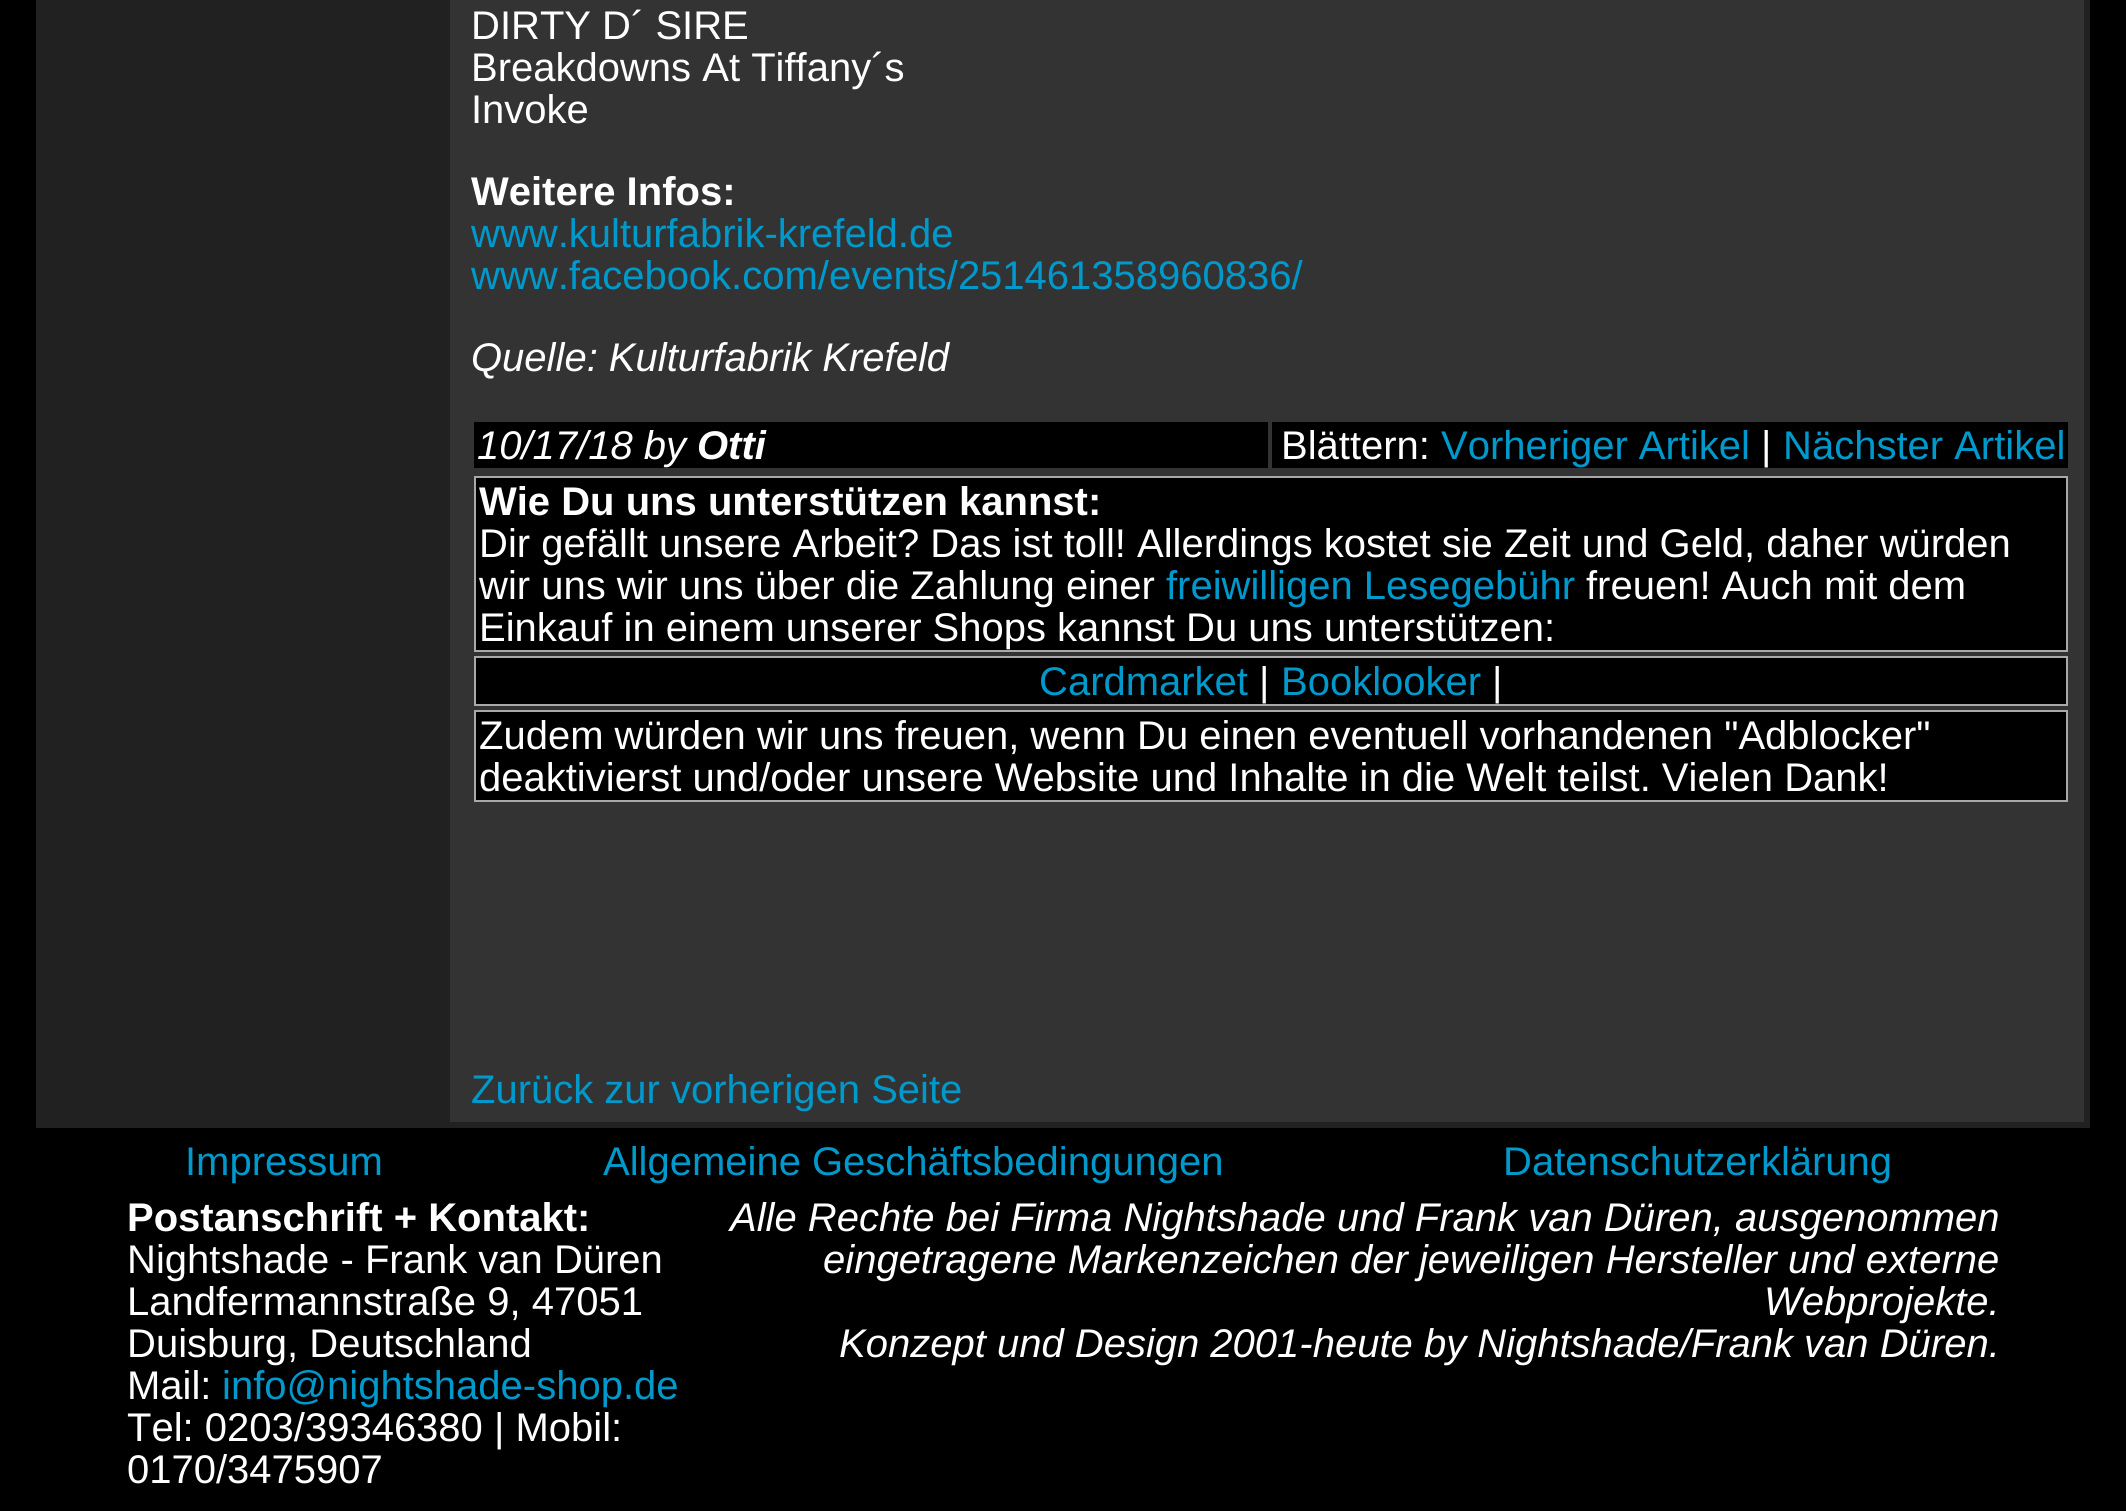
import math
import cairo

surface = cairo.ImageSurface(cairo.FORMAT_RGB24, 2126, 1511)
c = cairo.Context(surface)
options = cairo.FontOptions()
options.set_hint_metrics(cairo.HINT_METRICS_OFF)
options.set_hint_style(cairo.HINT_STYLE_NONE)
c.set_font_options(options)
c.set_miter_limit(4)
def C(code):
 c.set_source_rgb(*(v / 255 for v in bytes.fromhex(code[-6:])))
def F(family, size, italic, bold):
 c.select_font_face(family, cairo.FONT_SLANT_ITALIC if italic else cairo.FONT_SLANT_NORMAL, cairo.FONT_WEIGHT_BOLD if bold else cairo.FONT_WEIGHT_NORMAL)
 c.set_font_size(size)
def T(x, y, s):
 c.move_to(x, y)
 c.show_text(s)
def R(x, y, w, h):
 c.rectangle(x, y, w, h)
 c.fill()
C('000000')
c.paint()
C('212121')
R(36,0,2054,1128)
C('333333')
R(450,0,1634,1122)
F('Liberation Sans',40,0,0)
C('ffffff')
T(471,39,'DIRTY D´ SIRE')
T(471,81,'Breakdowns At Tiffany´s')
T(471,123,'Invoke')
F('Liberation Sans',40,0,1)
T(471,205,'Weitere Infos:')
F('Liberation Sans',40,0,0)
C('0099cc')
T(471,247,'www.kulturfabrik-krefeld.de')
T(471,289,'www.facebook.com/events/251461358960836/')
F('Liberation Sans',40,1,0)
C('ffffff')
T(471,371,'Quelle: Kulturfabrik Krefeld')
C('000000')
R(474,422,794,46)
C('ffffff')
T(477,459,'10/17/18 by')
F('Liberation Sans',40,1,1)
T(697,459,'Otti')
C('000000')
R(1272,422,796,46)
F('Liberation Sans',40,0,0)
C('ffffff')
T(1281,459,'Blättern:')
C('0099cc')
T(1441,459,'Vorheriger Artikel')
C('ffffff')
T(1761,459,'|')
C('0099cc')
T(1783,459,'Nächster Artikel')
C('000000')
c.rectangle(475,477,1592,174)
c.fill_preserve()
C('a9a9a9')
c.stroke()
F('Liberation Sans',40,0,1)
C('ffffff')
T(479,515,'Wie Du uns unterstützen kannst:')
F('Liberation Sans',40,0,0)
T(479,557,'Dir gefällt unsere Arbeit? Das ist toll! Allerdings kostet sie Zeit und Geld, daher würden')
T(479,599,'wir uns wir uns über die Zahlung einer')
C('0099cc')
T(1166,599,'freiwilligen Lesegebühr')
C('ffffff')
T(1586,599,'freuen! Auch mit dem')
T(479,641,'Einkauf in einem unserer Shops kannst Du uns unterstützen:')
C('000000')
c.rectangle(475,657,1592,48)
c.fill_preserve()
C('a9a9a9')
c.stroke()
C('0099cc')
T(1039,695,'Cardmarket')
C('ffffff')
T(1259,695,'|')
C('0099cc')
T(1281,695,'Booklooker')
C('ffffff')
T(1492,695,'|')
C('000000')
c.rectangle(475,711,1592,90)
c.fill_preserve()
C('a9a9a9')
c.stroke()
C('ffffff')
T(479,749,'Zudem würden wir uns freuen, wenn Du einen eventuell vorhandenen "Adblocker"')
T(479,791,'deaktivierst und/oder unsere Website und Inhalte in die Welt teilst. Vielen Dank!')
C('0099cc')
T(471,1103,'Zurück zur vorherigen Seite')
T(185,1175,'Impressum')
T(603,1175,'Allgemeine Geschäftsbedingungen')
T(1503,1175,'Datenschutzerklärung')
F('Liberation Sans',40,0,1)
C('ffffff')
T(127,1231,'Postanschrift + Kontakt:')
F('Liberation Sans',40,0,0)
T(127,1273,'Nightshade - Frank van Düren')
T(127,1315,'Landfermannstraße 9, 47051')
T(127,1357,'Duisburg, Deutschland')
T(127,1399,'Mail:')
C('0099cc')
T(222,1399,'info@nightshade-shop.de')
C('ffffff')
T(127,1441,'Tel: 0203/39346380 | Mobil:')
T(127,1483,'0170/3475907')
F('Liberation Sans',40,1,0)
T(730,1231,'Alle Rechte bei Firma Nightshade und Frank van Düren, ausgenommen')
T(823,1273,'eingetragene Markenzeichen der jeweiligen Hersteller und externe')
T(1764,1315,'Webprojekte.')
T(839,1357,'Konzept und Design 2001-heute by Nightshade/Frank van Düren.')
surface.write_to_png('o.png')
